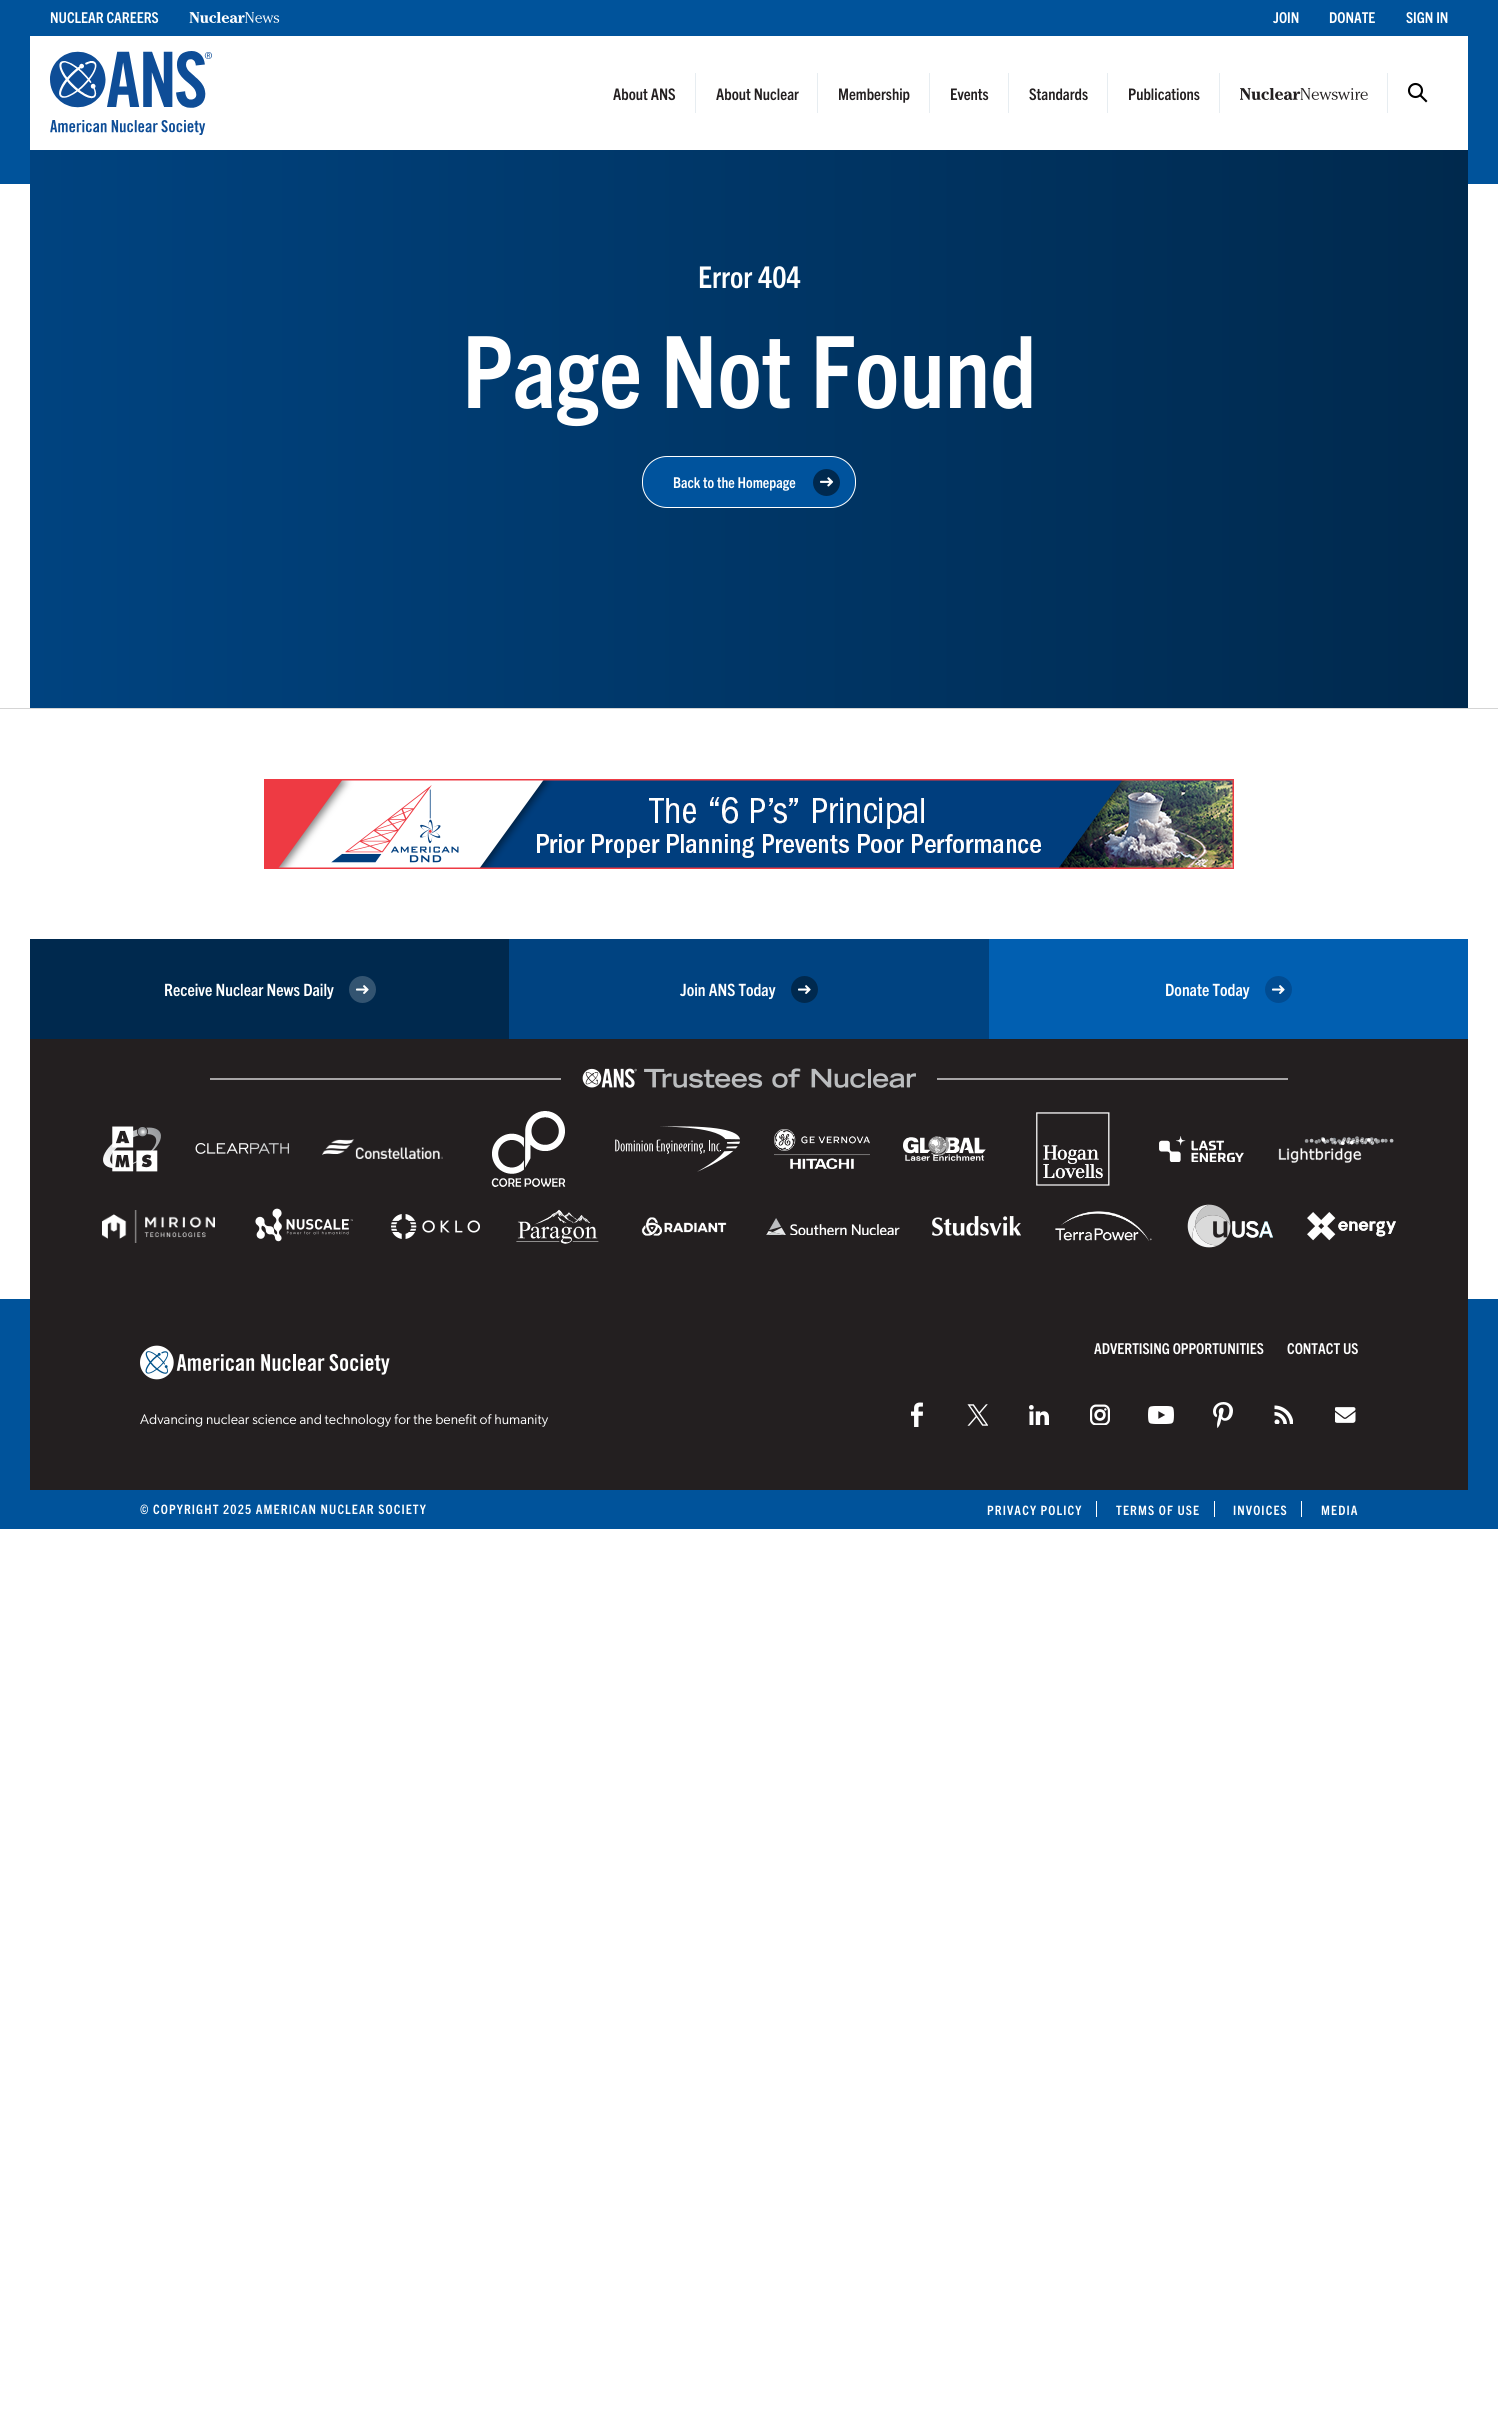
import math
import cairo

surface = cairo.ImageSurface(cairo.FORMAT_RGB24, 1498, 2429)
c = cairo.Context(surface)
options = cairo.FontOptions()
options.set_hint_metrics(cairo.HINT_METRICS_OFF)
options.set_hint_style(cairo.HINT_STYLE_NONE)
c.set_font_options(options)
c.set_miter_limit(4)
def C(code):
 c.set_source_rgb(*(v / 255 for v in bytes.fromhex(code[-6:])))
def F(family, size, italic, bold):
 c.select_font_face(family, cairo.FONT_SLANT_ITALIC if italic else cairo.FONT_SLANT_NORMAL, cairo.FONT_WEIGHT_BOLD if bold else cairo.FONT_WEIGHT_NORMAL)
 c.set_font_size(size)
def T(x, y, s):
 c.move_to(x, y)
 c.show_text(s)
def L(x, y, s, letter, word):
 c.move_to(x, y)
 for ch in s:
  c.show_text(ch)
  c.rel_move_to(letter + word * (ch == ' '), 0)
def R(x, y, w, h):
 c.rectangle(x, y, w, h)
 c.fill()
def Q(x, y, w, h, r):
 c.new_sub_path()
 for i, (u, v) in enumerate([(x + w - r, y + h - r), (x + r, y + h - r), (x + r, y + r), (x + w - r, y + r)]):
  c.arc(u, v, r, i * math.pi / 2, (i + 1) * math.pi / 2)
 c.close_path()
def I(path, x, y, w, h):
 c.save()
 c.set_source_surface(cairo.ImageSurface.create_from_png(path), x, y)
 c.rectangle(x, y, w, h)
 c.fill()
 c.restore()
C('ffffff')
c.paint()
C('00539b')
R(0,0,1498,184)
F('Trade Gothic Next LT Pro',15,0,1)
C('ffffff')
T(50,23,'NUCLEAR CAREERS')
I('1.png',189,12,91,11)
T(1273,23,'JOIN')
T(1329,23,'DONATE')
T(1406,23,'SIGN IN')
R(30,36,1438,114)
I('2.png',50,51,162,84)
F('Trade Gothic Next LT Pro',16,0,1)
C('231f20')
T(613,100,'About ANS')
C('e7edf1')
R(695,73,1,40)
C('231f20')
T(716,100,'About Nuclear')
C('e7edf1')
R(817,73,1,40)
C('231f20')
T(838,100,'Membership')
C('e7edf1')
R(929,73,1,40)
C('231f20')
T(950,100,'Events')
C('e7edf1')
R(1008,73,1,40)
C('231f20')
T(1029,100,'Standards')
C('e7edf1')
R(1107,73,1,40)
C('231f20')
T(1128,100,'Publications')
C('e7edf1')
R(1219,73,1,40)
I('3.png',1240,88,128,12)
R(1387,73,1,40)
c.new_path()
c.move_to(1420,95)
c.line_to(1426,101)
C('000000')
c.set_line_width(2.1)
c.set_line_cap(cairo.LINE_CAP_SQUARE)
c.stroke()
C('ffffff')
c.arc(1415.5,90.5,6.5,0,2 * math.pi)
c.fill_preserve()
C('000000')
c.set_line_cap(cairo.LINE_CAP_BUTT)
c.stroke()
gradient = cairo.LinearGradient(30,354,1468,354)
gradient.add_color_stop_rgba(0,0,0.263,0.502,1)
gradient.add_color_stop_rgba(1,0,0.161,0.302,1)
c.set_source(gradient)
R(30,150,1438,558)
F('Trade Gothic Next LT Pro',30,0,1)
C('ffffff')
T(698,288,'Error 404')
F('Trade Gothic Next LT Pro',100,0,1)
T(462,408,'Page Not Found')
C('00539d')
Q(642.5,456.5,213,51,24.5)
c.fill_preserve()
C('ffffff')
c.set_line_width(1)
c.stroke()
F('Trade Gothic Next LT Pro',15,0,1)
T(673,488,'Back to the Homepage')
C('00294e')
c.new_path()
c.arc(826.5,482.5,13.5,0,2 * math.pi)
c.fill()
I('4.png',820,477,14,10)
C('d5d5d5')
R(0,708,1498,1)
I('5.png',264,779,970,90)
C('231f20')
R(30,1039,1438,235)
C('00294e')
R(30,939,479,100)
F('Trade Gothic Next LT Pro',17,0,1)
C('ffffff')
T(164,996,'Receive Nuclear News Daily')
C('335471')
c.new_path()
c.arc(362.5,989.5,13.5,0,2 * math.pi)
c.fill()
I('6.png',356,985,13,9)
C('004381')
R(509,939,480,100)
C('ffffff')
T(680,996,'Join ANS Today')
C('00294e')
c.new_path()
c.arc(804.5,989.5,13.5,0,2 * math.pi)
c.fill()
I('7.png',798,985,13,9)
C('015fb1')
R(989,939,479,100)
C('ffffff')
T(1165,996,'Donate Today')
C('014c92')
c.new_path()
c.arc(1278.5,989.5,13.5,0,2 * math.pi)
c.fill()
I('8.png',1272,985,13,9)
C('a7a5a6')
R(210,1078,1078,2)
C('231f20')
R(561,1078,376,2)
I('9.png',582,1068,334,20)
I('10.png',103,1126,58,46)
I('11.png',195,1143,95,11)
I('12.png',322,1139,121,20)
I('13.png',491,1111,75,76)
I('14.png',615,1126,125,46)
I('15.png',774,1129,96,40)
I('16.png',903,1136,83,25)
I('17.png',1036,1112,74,74)
I('18.png',1159,1136,85,26)
I('19.png',1278,1136,116,27)
I('20.png',102,1210,113,33)
I('21.png',255,1208,98,34)
I('22.png',391,1214,89,25)
I('23.png',516,1209,83,35)
I('24.png',641,1217,86,19)
I('25.png',766,1218,134,17)
I('26.png',932,1216,89,20)
I('27.png',1055,1211,97,30)
I('28.png',1187,1204,86,44)
I('29.png',1307,1212,89,29)
C('00539b')
R(0,1299,1498,230)
C('231f20')
R(30,1274,1438,216)
F('Trade Gothic Next LT Pro',15,0,1)
C('ffffff')
T(1094,1354,'ADVERTISING OPPORTUNITIES')
T(1287,1354,'CONTACT US')
I('30.png',911,1402,12,25)
I('31.png',967,1404,21,22)
I('32.png',1029,1405,20,20)
I('33.png',1090,1404,20,21)
I('34.png',1148,1406,26,18)
I('35.png',1213,1402,20,26)
I('36.png',1274,1405,19,19)
I('37.png',1335,1407,21,16)
I('38.png',140,1345,250,35)
F('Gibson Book',14,0,0)
T(140,1424,'Advancing nuclear science and technology for the benefit of humanity')
F('Trade Gothic Next LT Pro',13,0,1)
L(140,1514,'© COPYRIGHT 2025 AMERICAN NUCLEAR SOCIETY',1.1,0)
L(987,1515,'PRIVACY POLICY',1.1,0)
R(1096,1501,1,16)
L(1116,1515,'TERMS OF USE',1.1,0)
R(1214,1501,1,16)
L(1233,1515,'INVOICES',1.1,0)
R(1301,1501,1,16)
L(1321,1515,'MEDIA',1.1,0)
surface.write_to_png('o.png')
